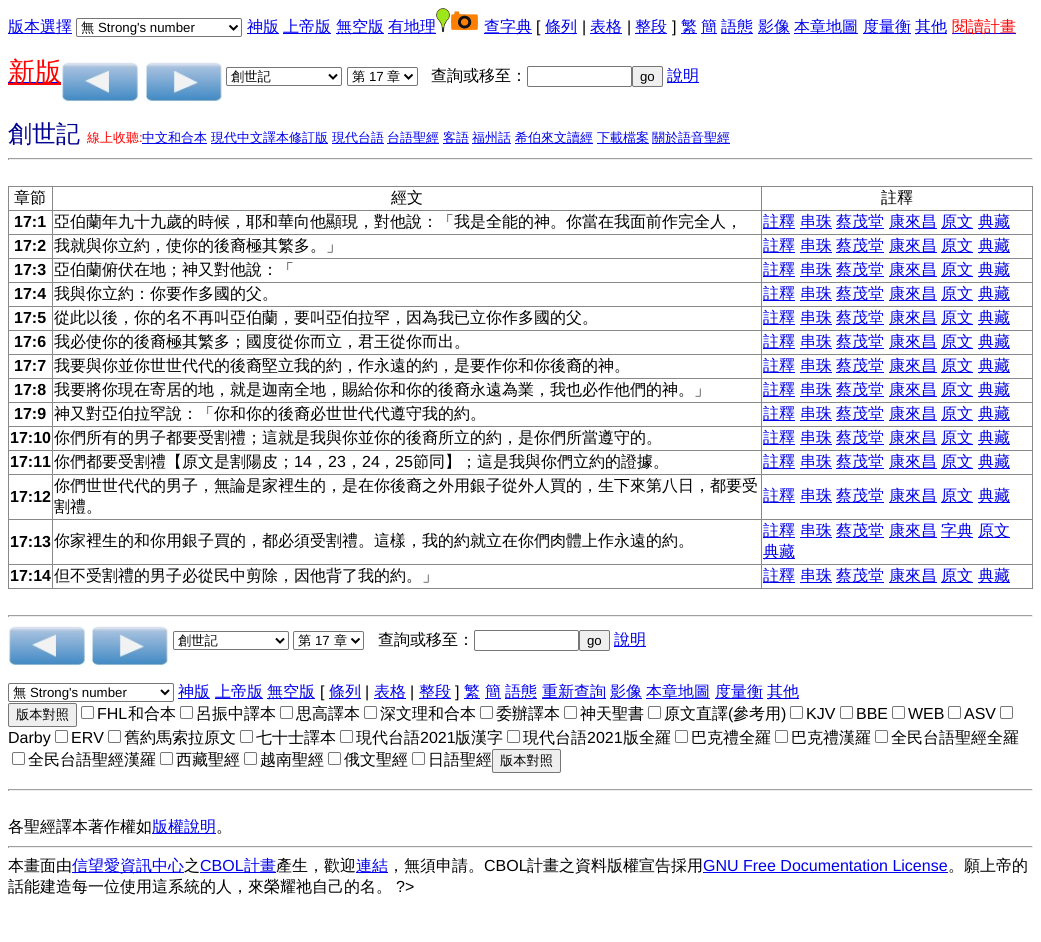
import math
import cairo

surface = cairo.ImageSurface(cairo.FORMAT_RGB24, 1041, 942)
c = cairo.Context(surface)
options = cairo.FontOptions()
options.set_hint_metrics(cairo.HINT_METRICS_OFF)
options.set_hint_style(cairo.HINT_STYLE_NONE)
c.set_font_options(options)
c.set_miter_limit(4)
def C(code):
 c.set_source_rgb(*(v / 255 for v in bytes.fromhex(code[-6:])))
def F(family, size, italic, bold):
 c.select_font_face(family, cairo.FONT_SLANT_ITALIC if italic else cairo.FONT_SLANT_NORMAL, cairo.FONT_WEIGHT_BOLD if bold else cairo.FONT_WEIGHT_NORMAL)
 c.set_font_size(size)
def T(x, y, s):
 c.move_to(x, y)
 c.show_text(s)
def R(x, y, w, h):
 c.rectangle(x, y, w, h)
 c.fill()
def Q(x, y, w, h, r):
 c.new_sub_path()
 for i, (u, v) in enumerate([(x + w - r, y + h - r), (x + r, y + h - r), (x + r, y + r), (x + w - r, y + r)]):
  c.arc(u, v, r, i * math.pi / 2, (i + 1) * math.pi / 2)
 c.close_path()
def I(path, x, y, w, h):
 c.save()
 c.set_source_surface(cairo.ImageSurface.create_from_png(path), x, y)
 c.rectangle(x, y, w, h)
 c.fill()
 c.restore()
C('ffffff')
c.paint()
C('0000ee')
R(8,33,64,1)
F('WenQuanYi Zen Hei Medium',16,0,0)
T(8,32,'版本選擇')
Q(76.5,18.5,165,18,1.5)
C('767676')
c.set_line_width(1)
c.stroke()
c.new_path()
c.move_to(229.5,25.5)
c.line_to(233.5,29.5)
c.line_to(237.5,25.5)
C('000000')
c.set_line_width(2)
c.stroke()
F('WenQuanYi Zen Hei Medium',13.25,0,0)
T(81,32,'無')
F('Liberation Sans',13.25,0,0)
T(98,32,'Strong\'s number')
C('0000ee')
R(247,33,32,1)
F('WenQuanYi Zen Hei Medium',16,0,0)
T(247,32,'神版')
R(283,33,48,1)
T(283,32,'上帝版')
R(336,33,48,1)
T(336,32,'無空版')
R(388,33,48,1)
T(388,32,'有地理')
I('1.png',436,8,14,24)
I('2.png',451,11,27,20)
R(484,33,48,1)
T(484,32,'查字典')
F('Liberation Sans',16,0,0)
C('000000')
T(536,32,'[')
C('0000ee')
R(545,33,32,1)
F('WenQuanYi Zen Hei Medium',16,0,0)
T(545,32,'條列')
F('Liberation Sans',16,0,0)
C('000000')
T(582,32,'|')
C('0000ee')
R(590,33,32,1)
F('WenQuanYi Zen Hei Medium',16,0,0)
T(590,32,'表格')
F('Liberation Sans',16,0,0)
C('000000')
T(627,32,'|')
C('0000ee')
R(635,33,32,1)
F('WenQuanYi Zen Hei Medium',16,0,0)
T(635,32,'整段')
F('Liberation Sans',16,0,0)
C('000000')
T(672,32,']')
C('0000ee')
R(681,33,16,1)
F('WenQuanYi Zen Hei Medium',16,0,0)
T(681,32,'繁')
R(701,33,16,1)
T(701,32,'簡')
R(721,33,32,1)
T(721,32,'語態')
R(758,33,32,1)
T(758,32,'影像')
R(794,33,64,1)
T(794,32,'本章地圖')
R(863,33,48,1)
T(863,32,'度量衡')
R(915,33,32,1)
T(915,32,'其他')
R(952,33,64,1)
C('ff0000')
T(952,32,'閱讀計畫')
R(8,83,53,2)
C('0000ee')
R(8,82,53,1)
F('WenQuanYi Zen Hei Medium',27,0,0)
C('ff0000')
T(8,81,'新版')
I('3.png',61,62,78,40)
I('4.png',144,62,78,40)
Q(226.5,67.5,115,18,1.5)
C('767676')
c.set_line_width(1)
c.stroke()
c.new_path()
c.move_to(329,74.5)
c.line_to(333,78.5)
c.line_to(337,74.5)
C('000000')
c.set_line_width(2)
c.stroke()
F('WenQuanYi Zen Hei Medium',13.25,0,0)
T(231,81,'創世記')
Q(347.5,67.5,70,18,1.5)
C('767676')
c.set_line_width(1)
c.stroke()
c.new_path()
c.move_to(404.5,74.5)
c.line_to(408.5,78.5)
c.line_to(412.5,74.5)
C('000000')
c.set_line_width(2)
c.stroke()
T(352,81,'第')
F('Liberation Sans',13.25,0,0)
T(369,81,'17')
F('WenQuanYi Zen Hei Medium',13.25,0,0)
T(387,81,'章')
F('WenQuanYi Zen Hei Medium',16,0,0)
T(431,81,'查詢或移至：')
Q(527.5,66.5,104,20,1.5)
C('767676')
c.set_line_width(1)
c.stroke()
C('efefef')
Q(632.5,66.5,30,20,1.5)
c.fill_preserve()
C('767676')
c.stroke()
F('Liberation Sans',13.25,0,0)
C('000000')
T(640,81,'go')
C('0000ee')
R(667,82,32,1)
F('WenQuanYi Zen Hei Medium',16,0,0)
T(667,81,'說明')
F('WenQuanYi Zen Hei Medium',24,0,0)
C('000090')
T(8,142,'創世記')
F('WenQuanYi Zen Hei Medium',13,0,0)
C('ff0000')
T(87,142,'線上收聽')
F('Liberation Sans',13,0,0)
T(139,142,':')
C('0000ee')
R(142,143,65,1)
F('WenQuanYi Zen Hei Medium',13,0,0)
T(142,142,'中文和合本')
R(211,143,117,1)
T(211,142,'現代中文譯本修訂版')
R(332,143,52,1)
T(332,142,'現代台語')
R(387,143,52,1)
T(387,142,'台語聖經')
R(443,143,26,1)
T(443,142,'客語')
R(472,143,39,1)
T(472,142,'福州話')
R(515,143,78,1)
T(515,142,'希伯來文讀經')
R(597,143,52,1)
T(597,142,'下載檔案')
R(652,143,78,1)
T(652,142,'關於語音聖經')
C('9f9f9f')
R(8,158,1025,1)
C('eeeeee')
R(1032,158,1,2)
R(8,159,1025,1)
C('9f9f9f')
R(8,158,1,2)
C('888888')
R(8,186,1025,1)
R(1032,186,1,403)
R(8,588,1025,1)
R(8,186,1,403)
F('WenQuanYi Zen Hei Medium',16,0,0)
C('000000')
T(14,203,'章節')
T(391,203,'經文')
T(881,203,'註釋')
C('888888')
R(8,210,1025,1)
F('Liberation Sans',16,0,1)
C('000000')
T(14,227,'17:1')
F('WenQuanYi Zen Hei Medium',16,0,0)
T(54,227,'亞伯蘭年九十九歲的時候，耶和華向他顯現，對他說：「我是全能的神。你當在我面前作完全人，')
C('0000ee')
R(763,228,32,1)
T(763,227,'註釋')
R(800,228,32,1)
T(800,227,'串珠')
R(836,228,48,1)
T(836,227,'蔡茂堂')
R(889,228,48,1)
T(889,227,'康來昌')
R(941,228,32,1)
T(941,227,'原文')
R(978,228,32,1)
T(978,227,'典藏')
C('888888')
R(8,234,1025,1)
F('Liberation Sans',16,0,1)
C('000000')
T(14,251,'17:2')
F('WenQuanYi Zen Hei Medium',16,0,0)
T(54,251,'我就與你立約，使你的後裔極其繁多。」')
C('0000ee')
R(763,252,32,1)
T(763,251,'註釋')
R(800,252,32,1)
T(800,251,'串珠')
R(836,252,48,1)
T(836,251,'蔡茂堂')
R(889,252,48,1)
T(889,251,'康來昌')
R(941,252,32,1)
T(941,251,'原文')
R(978,252,32,1)
T(978,251,'典藏')
C('888888')
R(8,258,1025,1)
F('Liberation Sans',16,0,1)
C('000000')
T(14,275,'17:3')
F('WenQuanYi Zen Hei Medium',16,0,0)
T(54,275,'亞伯蘭俯伏在地；神又對他說：「')
C('0000ee')
R(763,276,32,1)
T(763,275,'註釋')
R(800,276,32,1)
T(800,275,'串珠')
R(836,276,48,1)
T(836,275,'蔡茂堂')
R(889,276,48,1)
T(889,275,'康來昌')
R(941,276,32,1)
T(941,275,'原文')
R(978,276,32,1)
T(978,275,'典藏')
C('888888')
R(8,282,1025,1)
F('Liberation Sans',16,0,1)
C('000000')
T(14,299,'17:4')
F('WenQuanYi Zen Hei Medium',16,0,0)
T(54,299,'我與你立約：你要作多國的父。')
C('0000ee')
R(763,300,32,1)
T(763,299,'註釋')
R(800,300,32,1)
T(800,299,'串珠')
R(836,300,48,1)
T(836,299,'蔡茂堂')
R(889,300,48,1)
T(889,299,'康來昌')
R(941,300,32,1)
T(941,299,'原文')
R(978,300,32,1)
T(978,299,'典藏')
C('888888')
R(8,306,1025,1)
F('Liberation Sans',16,0,1)
C('000000')
T(14,323,'17:5')
F('WenQuanYi Zen Hei Medium',16,0,0)
T(54,323,'從此以後，你的名不再叫亞伯蘭，要叫亞伯拉罕，因為我已立你作多國的父。')
C('0000ee')
R(763,324,32,1)
T(763,323,'註釋')
R(800,324,32,1)
T(800,323,'串珠')
R(836,324,48,1)
T(836,323,'蔡茂堂')
R(889,324,48,1)
T(889,323,'康來昌')
R(941,324,32,1)
T(941,323,'原文')
R(978,324,32,1)
T(978,323,'典藏')
C('888888')
R(8,330,1025,1)
F('Liberation Sans',16,0,1)
C('000000')
T(14,347,'17:6')
F('WenQuanYi Zen Hei Medium',16,0,0)
T(54,347,'我必使你的後裔極其繁多；國度從你而立，君王從你而出。')
C('0000ee')
R(763,348,32,1)
T(763,347,'註釋')
R(800,348,32,1)
T(800,347,'串珠')
R(836,348,48,1)
T(836,347,'蔡茂堂')
R(889,348,48,1)
T(889,347,'康來昌')
R(941,348,32,1)
T(941,347,'原文')
R(978,348,32,1)
T(978,347,'典藏')
C('888888')
R(8,354,1025,1)
F('Liberation Sans',16,0,1)
C('000000')
T(14,371,'17:7')
F('WenQuanYi Zen Hei Medium',16,0,0)
T(54,371,'我要與你並你世世代代的後裔堅立我的約，作永遠的約，是要作你和你後裔的神。')
C('0000ee')
R(763,372,32,1)
T(763,371,'註釋')
R(800,372,32,1)
T(800,371,'串珠')
R(836,372,48,1)
T(836,371,'蔡茂堂')
R(889,372,48,1)
T(889,371,'康來昌')
R(941,372,32,1)
T(941,371,'原文')
R(978,372,32,1)
T(978,371,'典藏')
C('888888')
R(8,378,1025,1)
F('Liberation Sans',16,0,1)
C('000000')
T(14,395,'17:8')
F('WenQuanYi Zen Hei Medium',16,0,0)
T(54,395,'我要將你現在寄居的地，就是迦南全地，賜給你和你的後裔永遠為業，我也必作他們的神。」')
C('0000ee')
R(763,396,32,1)
T(763,395,'註釋')
R(800,396,32,1)
T(800,395,'串珠')
R(836,396,48,1)
T(836,395,'蔡茂堂')
R(889,396,48,1)
T(889,395,'康來昌')
R(941,396,32,1)
T(941,395,'原文')
R(978,396,32,1)
T(978,395,'典藏')
C('888888')
R(8,402,1025,1)
F('Liberation Sans',16,0,1)
C('000000')
T(14,419,'17:9')
F('WenQuanYi Zen Hei Medium',16,0,0)
T(54,419,'神又對亞伯拉罕說：「你和你的後裔必世世代代遵守我的約。')
C('0000ee')
R(763,420,32,1)
T(763,419,'註釋')
R(800,420,32,1)
T(800,419,'串珠')
R(836,420,48,1)
T(836,419,'蔡茂堂')
R(889,420,48,1)
T(889,419,'康來昌')
R(941,420,32,1)
T(941,419,'原文')
R(978,420,32,1)
T(978,419,'典藏')
C('888888')
R(8,426,1025,1)
F('Liberation Sans',16,0,1)
C('000000')
T(10,443,'17:10')
F('WenQuanYi Zen Hei Medium',16,0,0)
T(54,443,'你們所有的男子都要受割禮；這就是我與你並你的後裔所立的約，是你們所當遵守的。')
C('0000ee')
R(763,444,32,1)
T(763,443,'註釋')
R(800,444,32,1)
T(800,443,'串珠')
R(836,444,48,1)
T(836,443,'蔡茂堂')
R(889,444,48,1)
T(889,443,'康來昌')
R(941,444,32,1)
T(941,443,'原文')
R(978,444,32,1)
T(978,443,'典藏')
C('888888')
R(8,450,1025,1)
F('Liberation Sans',16,0,1)
C('000000')
T(10,467,'17:11')
F('WenQuanYi Zen Hei Medium',16,0,0)
T(54,467,'你們都要受割禮【原文是割陽皮；')
F('Liberation Sans',16,0,0)
T(294,467,'14')
T(328,467,'23')
T(362,467,'24')
T(395,467,'25')
F('WenQuanYi Zen Hei Medium',16,0,0)
T(413,467,'節同】；這是我與你們立約的證據。')
T(312,467,'，')
T(346,467,'，')
T(379,467,'，')
C('0000ee')
R(763,468,32,1)
T(763,467,'註釋')
R(800,468,32,1)
T(800,467,'串珠')
R(836,468,48,1)
T(836,467,'蔡茂堂')
R(889,468,48,1)
T(889,467,'康來昌')
R(941,468,32,1)
T(941,467,'原文')
R(978,468,32,1)
T(978,467,'典藏')
C('888888')
R(8,474,1025,1)
F('Liberation Sans',16,0,1)
C('000000')
T(10,502,'17:12')
F('WenQuanYi Zen Hei Medium',16,0,0)
T(54,491,'你們世世代代的男子，無論是家裡生的，是在你後裔之外用銀子從外人買的，生下來第八日，都要受')
T(54,512,'割禮。')
C('0000ee')
R(763,502,32,1)
T(763,501,'註釋')
R(800,502,32,1)
T(800,501,'串珠')
R(836,502,48,1)
T(836,501,'蔡茂堂')
R(889,502,48,1)
T(889,501,'康來昌')
R(941,502,32,1)
T(941,501,'原文')
R(978,502,32,1)
T(978,501,'典藏')
C('888888')
R(8,519,1025,1)
F('Liberation Sans',16,0,1)
C('000000')
T(10,547,'17:13')
F('WenQuanYi Zen Hei Medium',16,0,0)
T(54,546,'你家裡生的和你用銀子買的，都必須受割禮。這樣，我的約就立在你們肉體上作永遠的約。')
C('0000ee')
R(763,537,32,1)
T(763,536,'註釋')
R(800,537,32,1)
T(800,536,'串珠')
R(836,537,48,1)
T(836,536,'蔡茂堂')
R(889,537,48,1)
T(889,536,'康來昌')
R(941,537,32,1)
T(941,536,'字典')
R(978,537,32,1)
T(978,536,'原文')
R(763,558,32,1)
T(763,557,'典藏')
C('888888')
R(8,564,1025,1)
F('Liberation Sans',16,0,1)
C('000000')
T(10,581,'17:14')
C('888888')
R(52,186,1,403)
F('WenQuanYi Zen Hei Medium',16,0,0)
C('000000')
T(54,581,'但不受割禮的男子必從民中剪除，因他背了我的約。」')
C('888888')
R(761,186,1,403)
C('0000ee')
R(763,582,32,1)
T(763,581,'註釋')
R(800,582,32,1)
T(800,581,'串珠')
R(836,582,48,1)
T(836,581,'蔡茂堂')
R(889,582,48,1)
T(889,581,'康來昌')
R(941,582,32,1)
T(941,581,'原文')
R(978,582,32,1)
T(978,581,'典藏')
C('9f9f9f')
R(8,615,1025,1)
C('eeeeee')
R(1032,615,1,2)
R(8,616,1025,1)
C('9f9f9f')
R(8,615,1,2)
I('3.png',8,626,78,40)
I('4.png',90,626,78,40)
Q(173.5,631.5,115,18,1.5)
C('767676')
c.stroke()
c.new_path()
c.move_to(276,638.5)
c.line_to(280,642.5)
c.line_to(284,638.5)
C('000000')
c.set_line_width(2)
c.stroke()
F('WenQuanYi Zen Hei Medium',13.25,0,0)
T(178,645,'創世記')
Q(293.5,631.5,70,18,1.5)
C('767676')
c.set_line_width(1)
c.stroke()
c.new_path()
c.move_to(351.5,638.5)
c.line_to(355.5,642.5)
c.line_to(359.5,638.5)
C('000000')
c.set_line_width(2)
c.stroke()
T(298,645,'第')
F('Liberation Sans',13.25,0,0)
T(315,645,'17')
F('WenQuanYi Zen Hei Medium',13.25,0,0)
T(334,645,'章')
F('WenQuanYi Zen Hei Medium',16,0,0)
T(378,645,'查詢或移至：')
Q(474.5,630.5,104,20,1.5)
C('767676')
c.set_line_width(1)
c.stroke()
C('efefef')
Q(579.5,630.5,30,20,1.5)
c.fill_preserve()
C('767676')
c.stroke()
F('Liberation Sans',13.25,0,0)
C('000000')
T(587,645,'go')
C('0000ee')
R(614,646,32,1)
F('WenQuanYi Zen Hei Medium',16,0,0)
T(614,645,'說明')
Q(8.5,683.5,165,18,1.5)
C('767676')
c.stroke()
c.new_path()
c.move_to(161,690)
c.line_to(165,694)
c.line_to(169,690)
C('000000')
c.set_line_width(2)
c.stroke()
F('WenQuanYi Zen Hei Medium',13.25,0,0)
T(13,697,'無')
F('Liberation Sans',13.25,0,0)
T(30,697,'Strong\'s number')
C('0000ee')
R(178,698,32,1)
F('WenQuanYi Zen Hei Medium',16,0,0)
T(178,697,'神版')
R(215,698,48,1)
T(215,697,'上帝版')
R(267,698,48,1)
T(267,697,'無空版')
F('Liberation Sans',16,0,0)
C('000000')
T(320,697,'[')
C('0000ee')
R(329,698,32,1)
F('WenQuanYi Zen Hei Medium',16,0,0)
T(329,697,'條列')
F('Liberation Sans',16,0,0)
C('000000')
T(365,697,'|')
C('0000ee')
R(374,698,32,1)
F('WenQuanYi Zen Hei Medium',16,0,0)
T(374,697,'表格')
F('Liberation Sans',16,0,0)
C('000000')
T(410,697,'|')
C('0000ee')
R(419,698,32,1)
F('WenQuanYi Zen Hei Medium',16,0,0)
T(419,697,'整段')
F('Liberation Sans',16,0,0)
C('000000')
T(455,697,']')
C('0000ee')
R(464,698,16,1)
F('WenQuanYi Zen Hei Medium',16,0,0)
T(464,697,'繁')
R(485,698,16,1)
T(485,697,'簡')
R(505,698,32,1)
T(505,697,'語態')
R(542,698,64,1)
T(542,697,'重新查詢')
R(610,698,32,1)
T(610,697,'影像')
R(646,698,64,1)
T(646,697,'本章地圖')
R(715,698,48,1)
T(715,697,'度量衡')
R(767,698,32,1)
T(767,697,'其他')
C('efefef')
Q(8.5,703.5,68,23,1.5)
c.fill_preserve()
C('767676')
c.set_line_width(1)
c.stroke()
F('WenQuanYi Zen Hei Medium',13.25,0,0)
C('000000')
T(16,719,'版本對照')
Q(81.5,706.5,12,12,1.5)
C('767676')
c.stroke()
F('Liberation Sans',16,0,0)
C('000000')
T(97,719,'FHL')
F('WenQuanYi Zen Hei Medium',16,0,0)
T(128,719,'和合本')
Q(180.5,706.5,12,12,1.5)
C('767676')
c.stroke()
C('000000')
T(196,719,'呂振中譯本')
Q(280.5,706.5,12,12,1.5)
C('767676')
c.stroke()
C('000000')
T(296,719,'思高譯本')
Q(364.5,706.5,12,12,1.5)
C('767676')
c.stroke()
C('000000')
T(380,719,'深文理和合本')
Q(480.5,706.5,12,12,1.5)
C('767676')
c.stroke()
C('000000')
T(496,719,'委辦譯本')
Q(564.5,706.5,12,12,1.5)
C('767676')
c.stroke()
C('000000')
T(580,719,'神天聖書')
Q(648.5,706.5,12,12,1.5)
C('767676')
c.stroke()
C('000000')
T(664,719,'原文直譯')
F('Liberation Sans',16,0,0)
T(728,719,'(')
F('WenQuanYi Zen Hei Medium',16,0,0)
T(733,719,'參考用')
F('Liberation Sans',16,0,0)
T(781,719,')')
Q(790.5,706.5,12,12,1.5)
C('767676')
c.stroke()
C('000000')
T(806,719,'KJV')
Q(840.5,706.5,12,12,1.5)
C('767676')
c.stroke()
C('000000')
T(856,719,'BBE')
Q(892.5,706.5,12,12,1.5)
C('767676')
c.stroke()
C('000000')
T(908,719,'WEB')
Q(948.5,706.5,12,12,1.5)
C('767676')
c.stroke()
C('000000')
T(964,719,'ASV')
Q(1000.5,706.5,12,12,1.5)
C('767676')
c.stroke()
C('000000')
T(8,743,'Darby')
Q(55.5,730.5,12,12,1.5)
C('767676')
c.stroke()
C('000000')
T(71,743,'ERV')
Q(108.5,730.5,12,12,1.5)
C('767676')
c.stroke()
F('WenQuanYi Zen Hei Medium',16,0,0)
C('000000')
T(124,743,'舊約馬索拉原文')
Q(240.5,730.5,12,12,1.5)
C('767676')
c.stroke()
C('000000')
T(256,743,'七十士譯本')
Q(340.5,730.5,12,12,1.5)
C('767676')
c.stroke()
C('000000')
T(356,743,'現代台語')
F('Liberation Sans',16,0,0)
T(420,743,'2021')
F('WenQuanYi Zen Hei Medium',16,0,0)
T(455,743,'版漢字')
Q(507.5,730.5,12,12,1.5)
C('767676')
c.stroke()
C('000000')
T(523,743,'現代台語')
F('Liberation Sans',16,0,0)
T(587,743,'2021')
F('WenQuanYi Zen Hei Medium',16,0,0)
T(623,743,'版全羅')
Q(675.5,730.5,12,12,1.5)
C('767676')
c.stroke()
C('000000')
T(691,743,'巴克禮全羅')
Q(775.5,730.5,12,12,1.5)
C('767676')
c.stroke()
C('000000')
T(791,743,'巴克禮漢羅')
Q(875.5,730.5,12,12,1.5)
C('767676')
c.stroke()
C('000000')
T(891,743,'全民台語聖經全羅')
Q(12.5,752.5,12,12,1.5)
C('767676')
c.stroke()
C('000000')
T(28,765,'全民台語聖經漢羅')
Q(160.5,752.5,12,12,1.5)
C('767676')
c.stroke()
C('000000')
T(176,765,'西藏聖經')
Q(244.5,752.5,12,12,1.5)
C('767676')
c.stroke()
C('000000')
T(260,765,'越南聖經')
Q(328.5,752.5,12,12,1.5)
C('767676')
c.stroke()
C('000000')
T(344,765,'俄文聖經')
Q(412.5,752.5,12,12,1.5)
C('767676')
c.stroke()
C('000000')
T(428,765,'日語聖經')
C('efefef')
Q(492.5,749.5,68,23,1.5)
c.fill_preserve()
C('767676')
c.stroke()
F('WenQuanYi Zen Hei Medium',13.25,0,0)
C('000000')
T(500,765,'版本對照')
C('9f9f9f')
R(8,789,1025,1)
C('eeeeee')
R(1032,789,1,2)
R(8,790,1025,1)
C('9f9f9f')
R(8,789,1,2)
F('WenQuanYi Zen Hei Medium',16,0,0)
C('000000')
T(8,832,'各聖經譯本著作權如')
C('0000ee')
R(152,833,64,1)
T(152,832,'版權說明')
C('000000')
T(216,832,'。')
C('9f9f9f')
R(8,846,1025,1)
C('eeeeee')
R(1032,846,1,2)
R(8,847,1025,1)
C('9f9f9f')
R(8,846,1,2)
C('000000')
T(8,871,'本畫面由')
C('0000ee')
R(72,872,112,1)
T(72,871,'信望愛資訊中心')
C('000000')
T(184,871,'之')
F('Liberation Sans',16,0,0)
C('0000ee')
T(200,871,'CBOL')
R(200,872,76,1)
F('WenQuanYi Zen Hei Medium',16,0,0)
T(244,871,'計畫')
C('000000')
T(276,871,'產生，歡迎')
C('0000ee')
R(356,872,32,1)
T(356,871,'連結')
C('000000')
T(388,871,'，無須申請。')
F('Liberation Sans',16,0,0)
T(484,871,'CBOL')
F('WenQuanYi Zen Hei Medium',16,0,0)
T(527,871,'計畫之資料版權宣告採用')
F('Liberation Sans',16,0,0)
C('0000ee')
T(703,871,'GNU Free Documentation License')
R(703,872,245,1)
F('WenQuanYi Zen Hei Medium',16,0,0)
C('000000')
T(948,871,'。願上帝的')
T(8,892,'話能建造每一位使用這系統的人，來榮耀祂自己的名。')
F('Liberation Sans',16,0,0)
T(396,892,'?>')
surface.write_to_png('o.png')
